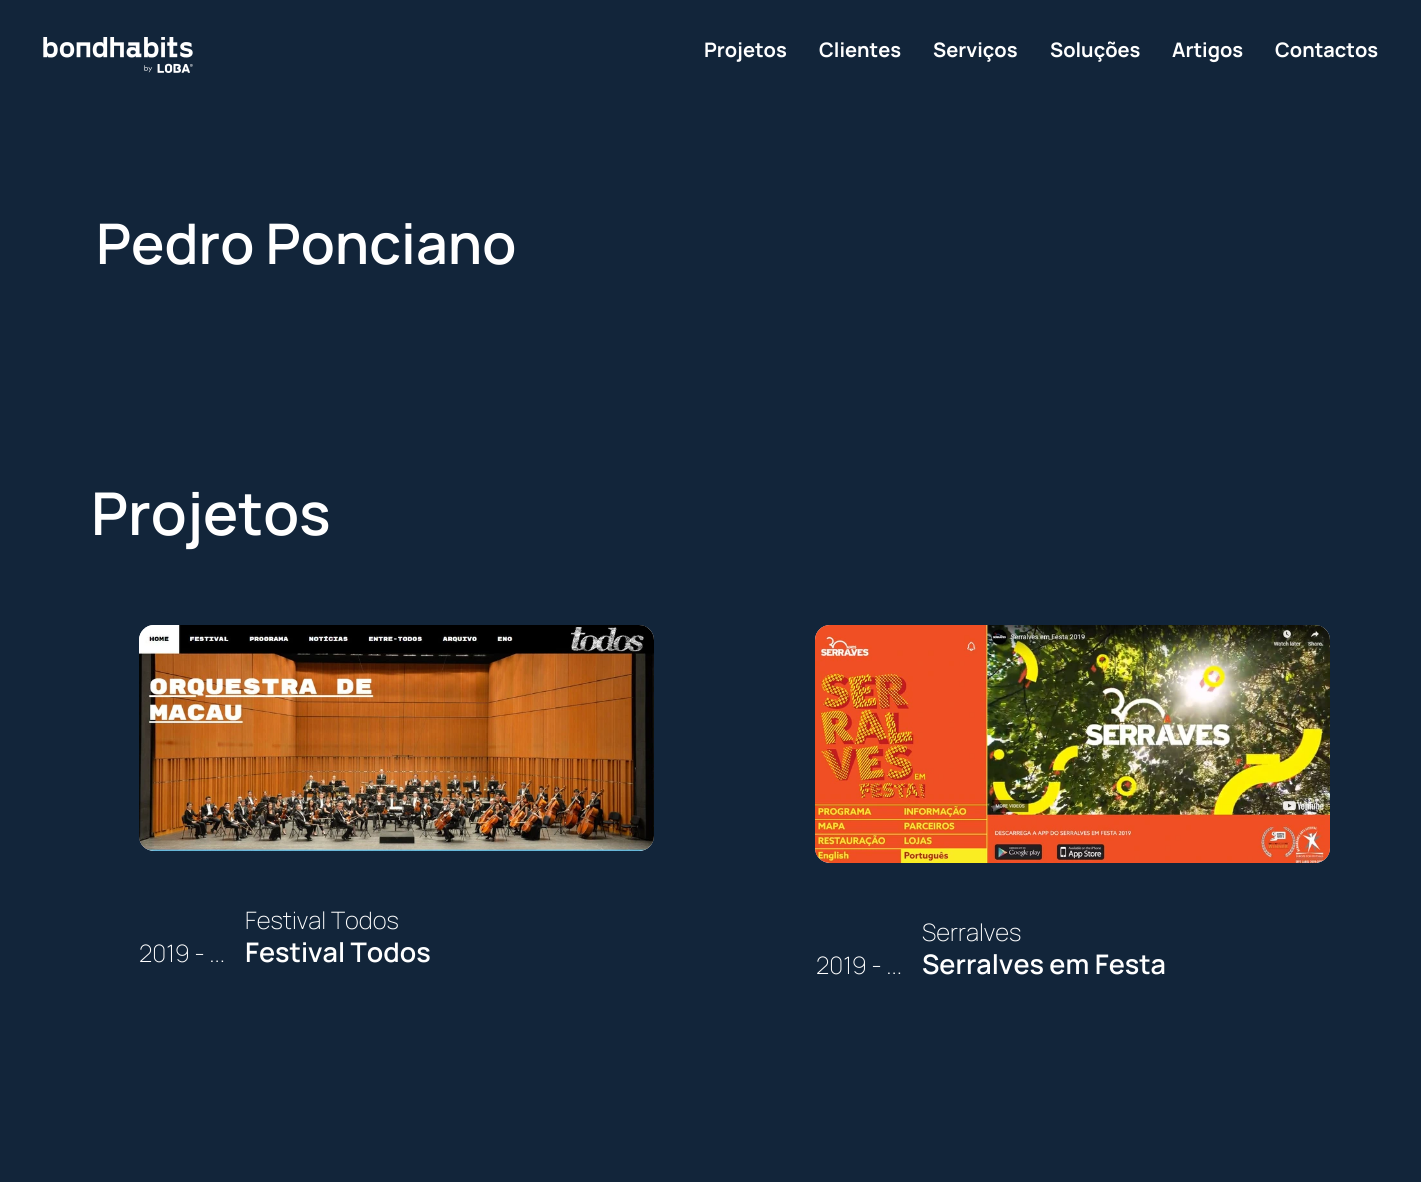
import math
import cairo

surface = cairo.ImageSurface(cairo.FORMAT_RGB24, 1421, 1182)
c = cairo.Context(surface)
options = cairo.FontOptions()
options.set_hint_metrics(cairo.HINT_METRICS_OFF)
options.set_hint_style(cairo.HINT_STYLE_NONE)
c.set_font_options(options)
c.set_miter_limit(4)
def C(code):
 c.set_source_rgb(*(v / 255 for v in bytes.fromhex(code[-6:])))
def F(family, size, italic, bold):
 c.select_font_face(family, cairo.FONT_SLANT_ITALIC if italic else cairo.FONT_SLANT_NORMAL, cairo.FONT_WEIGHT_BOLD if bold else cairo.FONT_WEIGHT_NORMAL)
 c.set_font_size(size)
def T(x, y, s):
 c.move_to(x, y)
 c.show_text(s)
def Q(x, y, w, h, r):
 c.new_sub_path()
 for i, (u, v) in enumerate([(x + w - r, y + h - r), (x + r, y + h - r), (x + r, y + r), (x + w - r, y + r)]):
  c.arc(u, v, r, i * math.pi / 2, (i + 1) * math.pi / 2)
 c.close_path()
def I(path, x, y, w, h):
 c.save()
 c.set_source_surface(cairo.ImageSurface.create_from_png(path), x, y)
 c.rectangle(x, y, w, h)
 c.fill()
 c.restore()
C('12253a')
c.paint()
I('1.png',43,37,150,36)
F('Manrope',20,0,1)
C('ffffff')
T(704,57,'Projetos')
T(819,57,'Clientes')
T(933,57,'Serviços')
T(1050,57,'Soluções')
T(1172,57,'Artigos')
T(1275,57,'Contactos')
F('Manrope SemiBold',56,0,0)
T(96,264,'Pedro Ponciano')
F('Manrope SemiBold',59,0,0)
T(91,535,'Projetos')
C('f0f0f0')
Q(139,625,515,226,15)
c.fill()
I('2.png',139,625,515,226)
F('Manrope ExtraLight',24,0,0)
C('ffffff')
T(245,929,'Festival Todos')
T(139,962,'2019 - ...')
F('Manrope SemiBold',27,0,0)
T(245,962,'Festival Todos')
C('f0f0f0')
Q(815,625,515,238,15)
c.fill()
I('3.png',815,625,515,238)
F('Manrope ExtraLight',24,0,0)
C('ffffff')
T(922,941,'Serralves')
T(816,974,'2019 - ...')
F('Manrope SemiBold',27,0,0)
T(922,974,'Serralves em Festa')
surface.write_to_png('o.png')
